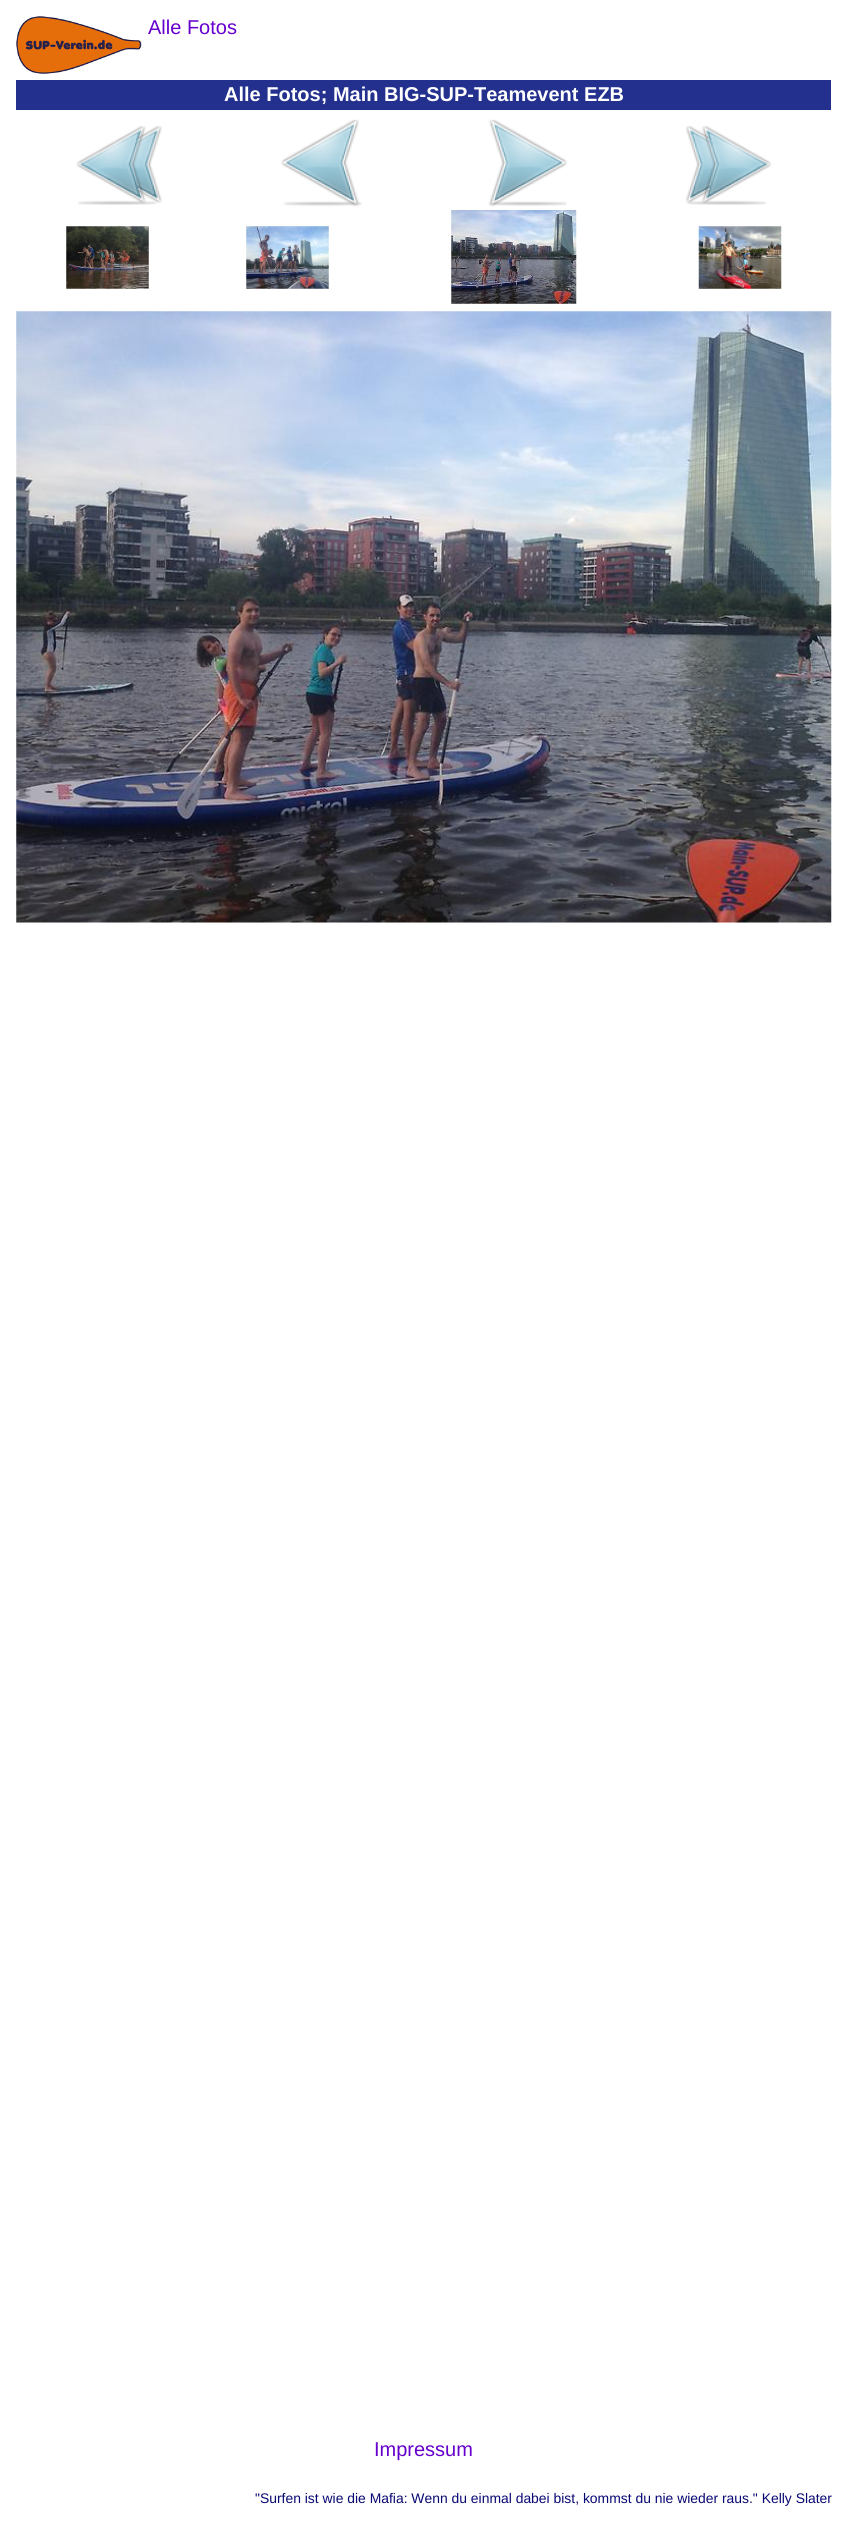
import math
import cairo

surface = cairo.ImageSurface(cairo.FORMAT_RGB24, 847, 2521)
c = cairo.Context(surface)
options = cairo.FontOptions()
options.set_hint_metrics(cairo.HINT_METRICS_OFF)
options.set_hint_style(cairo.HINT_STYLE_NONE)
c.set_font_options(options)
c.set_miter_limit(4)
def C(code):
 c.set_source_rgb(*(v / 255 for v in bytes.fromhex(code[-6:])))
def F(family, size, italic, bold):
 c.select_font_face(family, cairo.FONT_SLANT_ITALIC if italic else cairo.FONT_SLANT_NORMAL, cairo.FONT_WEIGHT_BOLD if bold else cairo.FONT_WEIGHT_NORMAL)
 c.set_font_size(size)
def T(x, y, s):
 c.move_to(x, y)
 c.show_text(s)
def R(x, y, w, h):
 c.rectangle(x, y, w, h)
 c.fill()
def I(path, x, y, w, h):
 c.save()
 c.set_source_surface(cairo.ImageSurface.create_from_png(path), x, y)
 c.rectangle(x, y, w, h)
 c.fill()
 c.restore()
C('ffffff')
c.paint()
I('1.png',16,16,126,58)
F('Liberation Sans',20,0,0)
C('6600cc')
T(148,34,'Alle Fotos')
C('23308e')
R(16,80,815,30)
F('Liberation Sans',20,0,1)
C('ffffff')
T(224,101,'Alle Fotos; Main BIG-SUP-Teamevent EZB')
I('2.png',76,126,86,79)
I('3.png',281,119,81,88)
I('4.png',488,119,79,88)
I('5.png',686,126,86,79)
I('6.png',66,226,83,63)
I('7.png',246,226,83,63)
I('8.png',451,210,126,94)
I('9.png',698,226,84,63)
I('10.png',16,311,816,612)
F('Liberation Sans',20,0,0)
C('6600cc')
T(374,2456,'Impressum')
F('Liberation Sans',13.9,0,0)
C('080875')
T(255,2503,'"Surfen ist wie die Mafia: Wenn du einmal dabei bist, kommst du nie wieder raus." Kelly Slater')
surface.write_to_png('o.png')
